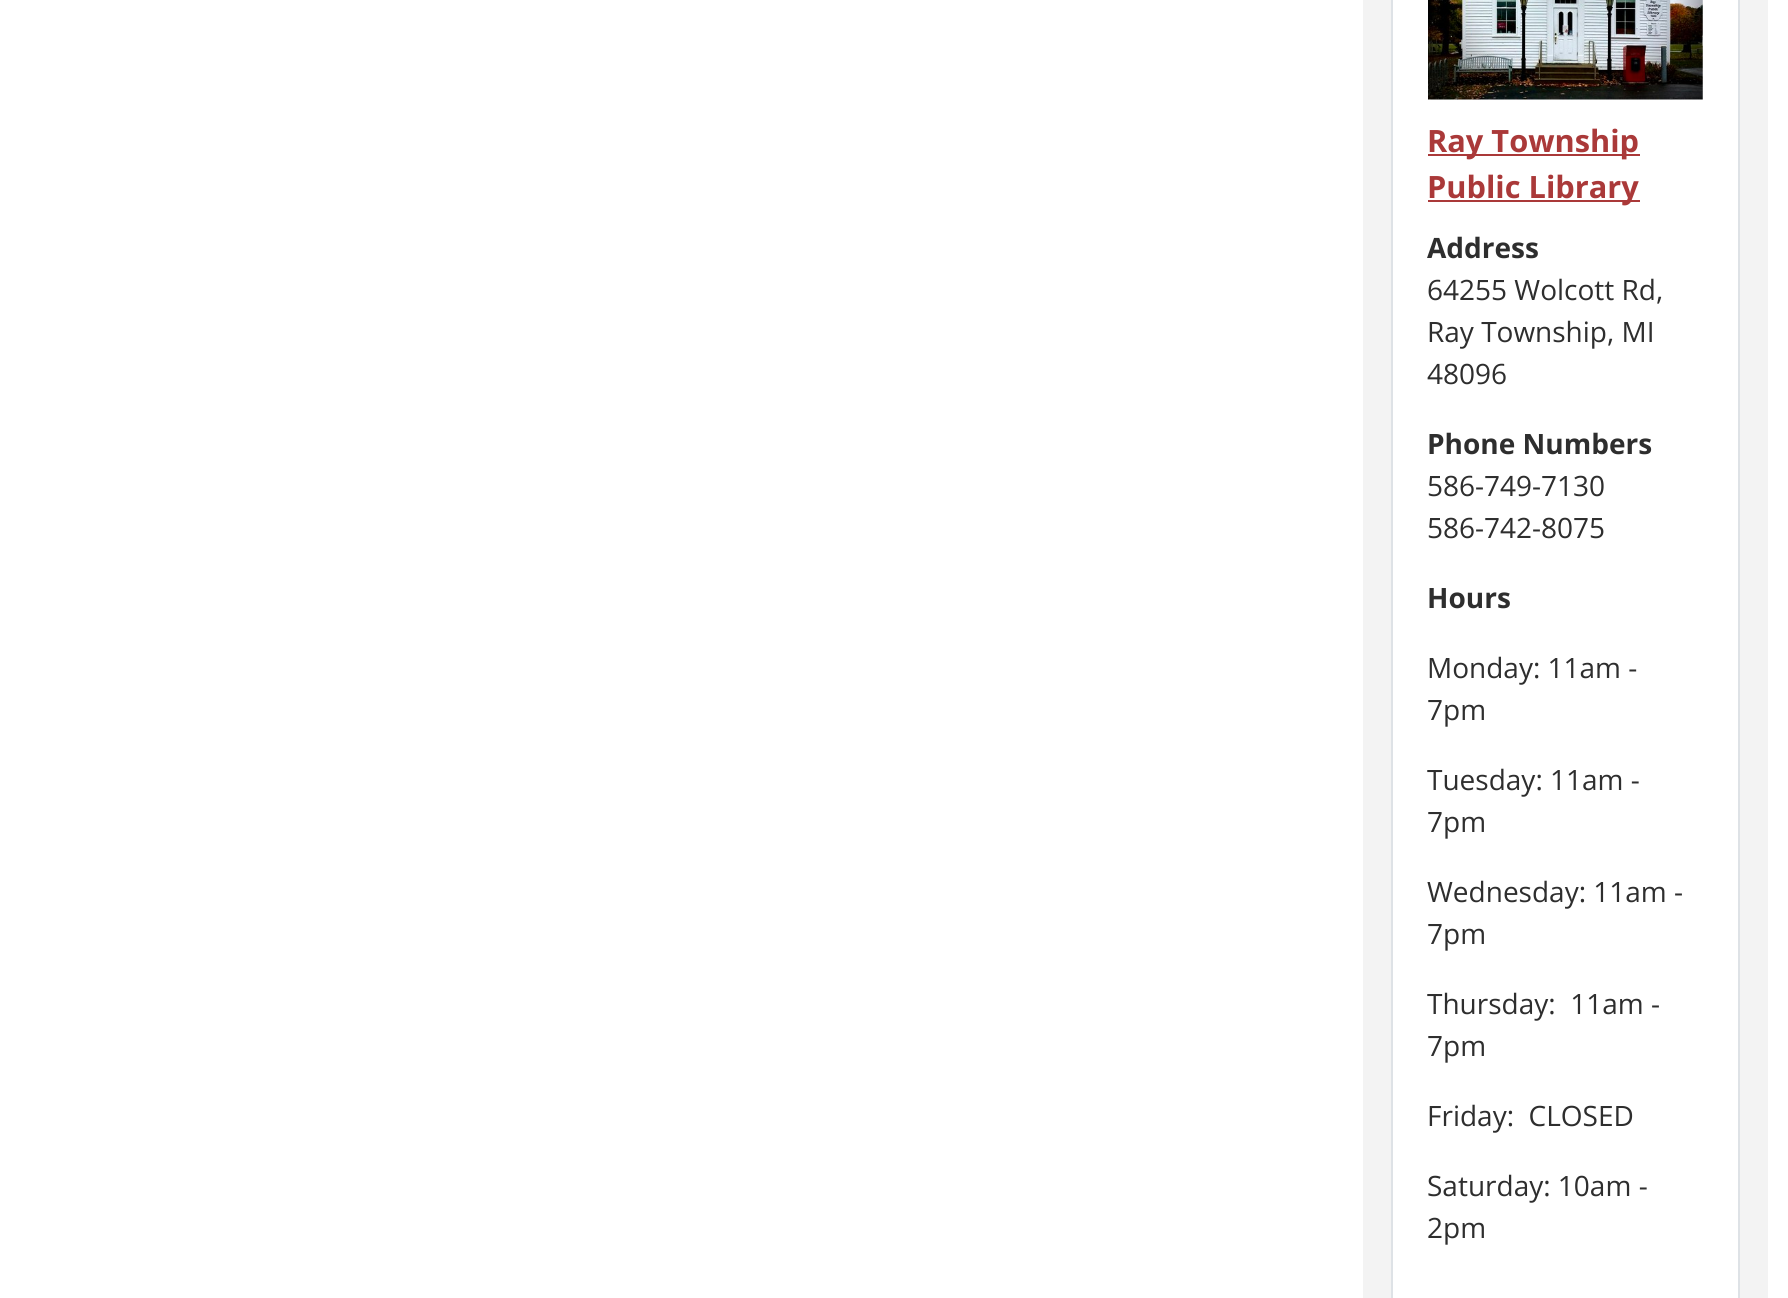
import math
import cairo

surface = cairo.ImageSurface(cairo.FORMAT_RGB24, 1788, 1298)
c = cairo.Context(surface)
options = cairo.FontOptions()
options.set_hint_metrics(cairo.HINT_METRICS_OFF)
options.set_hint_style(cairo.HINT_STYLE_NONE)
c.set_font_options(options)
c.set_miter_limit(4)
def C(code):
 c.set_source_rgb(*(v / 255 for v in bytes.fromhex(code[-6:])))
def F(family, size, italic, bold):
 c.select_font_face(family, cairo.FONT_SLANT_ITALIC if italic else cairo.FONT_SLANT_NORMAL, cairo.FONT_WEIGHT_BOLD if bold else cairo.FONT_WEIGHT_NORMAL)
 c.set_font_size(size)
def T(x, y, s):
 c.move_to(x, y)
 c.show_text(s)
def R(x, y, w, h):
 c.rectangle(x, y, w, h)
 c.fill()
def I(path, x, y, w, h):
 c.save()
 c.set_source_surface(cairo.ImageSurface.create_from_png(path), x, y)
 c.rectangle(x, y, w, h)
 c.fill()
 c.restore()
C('ffffff')
c.paint()
C('f3f3f3')
R(1363,0,405,1298)
C('ffffff')
c.rectangle(1392,-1,347,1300)
c.fill_preserve()
C('dee2e6')
c.stroke()
I('1.png',1428,0,275,100)
C('aa3939')
R(1428,154,212,2)
F('Open Sans',30.75,0,1)
T(1427,152,'Ray Township')
R(1428,200,212,2)
T(1427,198,'Public Library')
F('Open Sans',28,0,1)
C('2e2e2e')
T(1427,258,'Address')
F('Open Sans',28,0,0)
T(1427,300,'64255 Wolcott Rd,')
T(1427,342,'Ray Township, MI')
T(1427,384,'48096')
F('Open Sans',28,0,1)
T(1427,454,'Phone Numbers')
F('Open Sans',28,0,0)
T(1427,496,'586-749-7130')
T(1427,538,'586-742-8075')
F('Open Sans',28,0,1)
T(1427,608,'Hours')
F('Open Sans',28,0,0)
T(1427,678,'Monday: 11am -')
T(1427,720,'7pm')
T(1427,790,'Tuesday: 11am -')
T(1427,832,'7pm')
T(1427,902,'Wednesday: 11am -')
T(1427,944,'7pm')
T(1427,1014,'Thursday:  11am -')
T(1427,1056,'7pm')
T(1427,1126,'Friday:  CLOSED')
T(1427,1196,'Saturday: 10am -')
T(1427,1238,'2pm')
surface.write_to_png('o.png')
